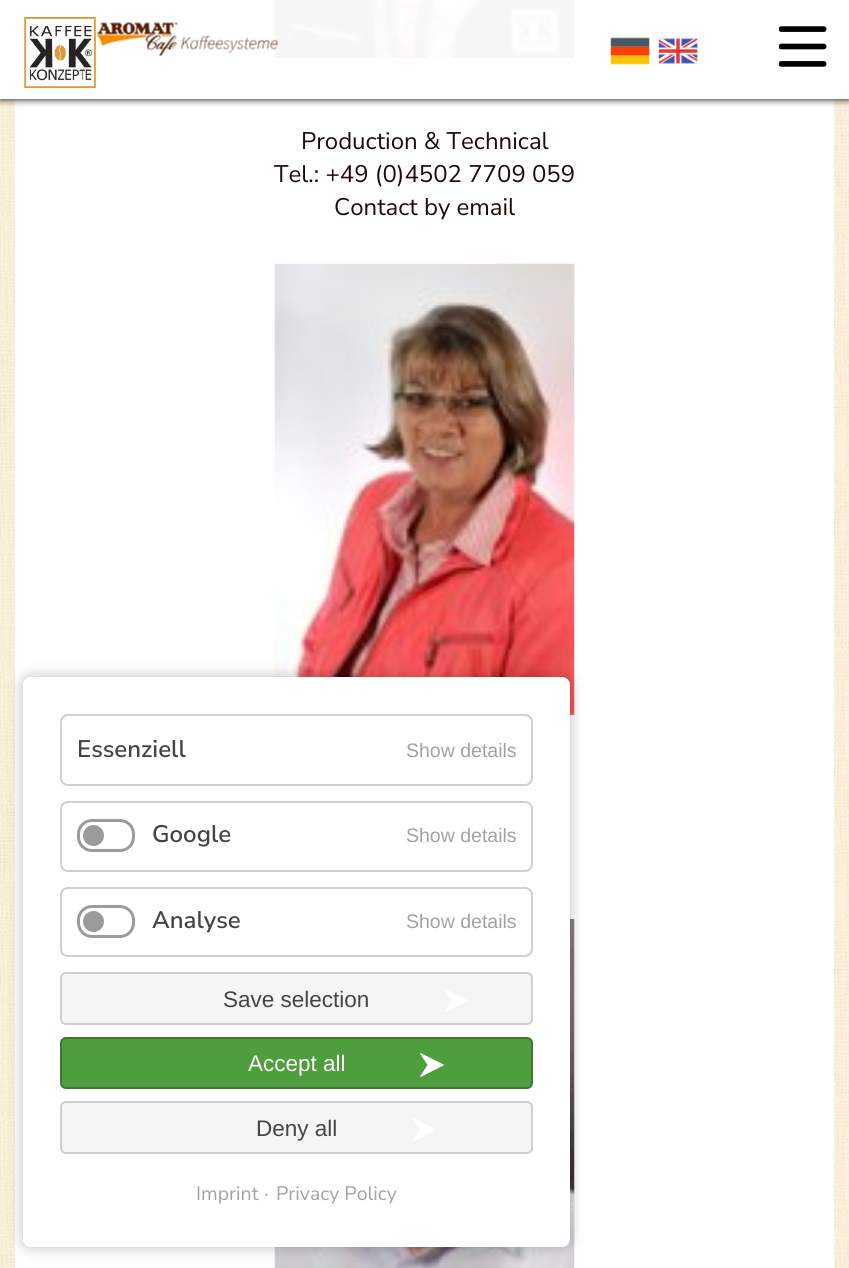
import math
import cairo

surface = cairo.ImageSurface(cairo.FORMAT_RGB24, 849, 1268)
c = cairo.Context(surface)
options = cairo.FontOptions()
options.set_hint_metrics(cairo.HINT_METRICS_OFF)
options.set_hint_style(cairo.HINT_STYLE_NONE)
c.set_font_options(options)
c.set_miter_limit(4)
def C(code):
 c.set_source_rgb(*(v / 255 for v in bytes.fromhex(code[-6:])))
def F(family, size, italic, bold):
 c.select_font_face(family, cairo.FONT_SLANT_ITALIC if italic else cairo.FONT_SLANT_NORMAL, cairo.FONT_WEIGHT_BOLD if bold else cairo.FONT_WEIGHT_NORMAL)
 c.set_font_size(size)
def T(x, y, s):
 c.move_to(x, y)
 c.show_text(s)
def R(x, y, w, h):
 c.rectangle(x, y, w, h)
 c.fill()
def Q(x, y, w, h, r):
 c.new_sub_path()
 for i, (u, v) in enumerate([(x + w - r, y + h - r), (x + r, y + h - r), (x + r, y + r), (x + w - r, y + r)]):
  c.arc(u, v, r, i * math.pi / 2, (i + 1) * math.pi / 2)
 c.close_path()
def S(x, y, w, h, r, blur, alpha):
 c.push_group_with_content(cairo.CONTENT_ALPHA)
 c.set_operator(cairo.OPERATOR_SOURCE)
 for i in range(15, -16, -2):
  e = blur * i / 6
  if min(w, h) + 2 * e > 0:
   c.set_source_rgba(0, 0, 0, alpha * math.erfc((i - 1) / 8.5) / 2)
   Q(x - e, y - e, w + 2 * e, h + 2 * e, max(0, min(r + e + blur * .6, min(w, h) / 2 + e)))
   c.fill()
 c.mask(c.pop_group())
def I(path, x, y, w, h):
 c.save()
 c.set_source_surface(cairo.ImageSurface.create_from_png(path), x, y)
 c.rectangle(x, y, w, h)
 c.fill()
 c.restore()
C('ffffff')
c.paint()
I('1.png',0,0,849,1268)
C('ffffff')
R(15,0,819,1268)
I('7.png',274,0,301,58)
c.save()
c.rectangle(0,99,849,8)
c.clip()
C('000000')
S(0,0,849,99,0,4,1)
c.restore()
c.set_source_rgba(1,1,1,0.96)
R(0,0,849,99)
I('2.png',22,15,76,75)
I('3.png',97,22,181,34)
I('4.png',610,37,40,28)
I('5.png',658,38,40,26)
I('6.png',779,26,48,41)
F('Nunito Sans',24,0,0)
C('1f0909')
T(301,149,'Production & Technical')
T(274,182,'Tel.: +49 (0)4502 7709 059')
T(334,215,'Contact by email')
I('8.png',274,263,301,452)
I('9.png',274,919,301,349)
C('000000')
S(23,677,547,570,8,7.5,.25)
C('ffffff')
Q(23,677,547,570,8)
c.fill()
Q(61,715,471,70,7)
C('d0d0d0')
c.stroke()
F('Nunito Sans SemiBold',24,0,0)
C('444444')
T(77,757,'Essenziell')
F('Liberation Sans',19.5,0,0)
C('a2a2a2')
T(406,757,'Show details')
Q(61,802,471,69,7)
C('d0d0d0')
c.stroke()
Q(78.5,820.5,55,30,13.5)
C('9c9b99')
c.set_line_width(3)
c.stroke()
F('Nunito Sans SemiBold',24,0,0)
C('444444')
T(152,842,'Google')
C('9c9b99')
c.new_path()
c.arc(93.5,835.5,10.5,0,2 * math.pi)
c.fill()
F('Liberation Sans',19.5,0,0)
C('a2a2a2')
T(406,842,'Show details')
Q(61,888,471,68,7)
C('d0d0d0')
c.set_line_width(2)
c.stroke()
Q(78.5,906.5,55,30,13.5)
C('9c9b99')
c.set_line_width(3)
c.stroke()
c.arc(93.5,921.5,10.5,0,2 * math.pi)
c.fill()
F('Nunito Sans SemiBold',24,0,0)
C('444444')
T(152,928,'Analyse')
F('Liberation Sans',19.5,0,0)
C('a2a2a2')
T(406,928,'Show details')
C('f5f5f5')
Q(61,973,471,51,5)
c.fill_preserve()
C('cfcfcf')
c.set_line_width(2)
c.stroke()
F('Liberation Sans',22.5,0,0)
C('444444')
T(223,1007,'Save selection')
I('10.png',444,989,24,23)
C('4e9e3e')
Q(61,1038,471,50,5)
c.fill_preserve()
C('3e7830')
c.stroke()
C('ffffff')
T(248,1071,'Accept all')
I('11.png',420,1053,24,24)
C('f5f5f5')
Q(61,1102,471,51,5)
c.fill_preserve()
C('cfcfcf')
c.stroke()
C('444444')
T(256,1136,'Deny all')
I('12.png',413,1118,23,23)
F('Nunito Sans',19.5,0,0)
C('a2a2a2')
T(196,1200,'Imprint')
T(264,1200,'·')
T(276,1200,'Privacy Policy')
surface.write_to_png('o.png')
